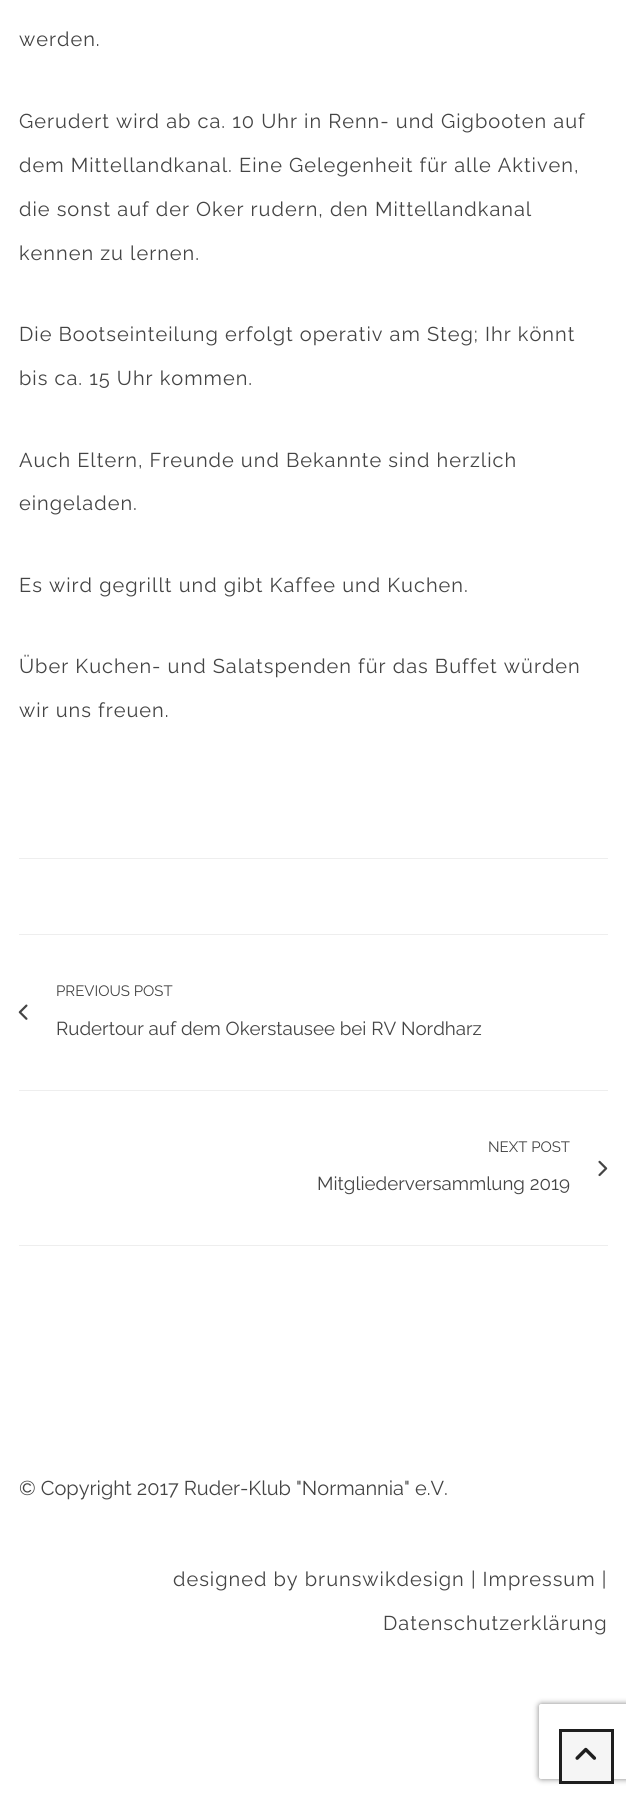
import math
import cairo

surface = cairo.ImageSurface(cairo.FORMAT_RGB24, 626, 1796)
c = cairo.Context(surface)
options = cairo.FontOptions()
options.set_hint_metrics(cairo.HINT_METRICS_OFF)
options.set_hint_style(cairo.HINT_STYLE_NONE)
c.set_font_options(options)
c.set_miter_limit(4)
def C(code):
 c.set_source_rgb(*(v / 255 for v in bytes.fromhex(code[-6:])))
def F(family, size, italic, bold):
 c.select_font_face(family, cairo.FONT_SLANT_ITALIC if italic else cairo.FONT_SLANT_NORMAL, cairo.FONT_WEIGHT_BOLD if bold else cairo.FONT_WEIGHT_NORMAL)
 c.set_font_size(size)
def T(x, y, s):
 c.move_to(x, y)
 c.show_text(s)
def L(x, y, s, letter, word):
 c.move_to(x, y)
 for ch in s:
  c.show_text(ch)
  c.rel_move_to(letter + word * (ch == ' '), 0)
def R(x, y, w, h):
 c.rectangle(x, y, w, h)
 c.fill()
def Q(x, y, w, h, r):
 c.new_sub_path()
 for i, (u, v) in enumerate([(x + w - r, y + h - r), (x + r, y + h - r), (x + r, y + r), (x + w - r, y + r)]):
  c.arc(u, v, r, i * math.pi / 2, (i + 1) * math.pi / 2)
 c.close_path()
def S(x, y, w, h, r, blur, alpha):
 c.push_group_with_content(cairo.CONTENT_ALPHA)
 c.set_operator(cairo.OPERATOR_SOURCE)
 for i in range(15, -16, -2):
  e = blur * i / 6
  if min(w, h) + 2 * e > 0:
   c.set_source_rgba(0, 0, 0, alpha * math.erfc((i - 1) / 8.5) / 2)
   Q(x - e, y - e, w + 2 * e, h + 2 * e, max(0, min(r + e + blur * .6, min(w, h) / 2 + e)))
   c.fill()
 c.mask(c.pop_group())
def I(path, x, y, w, h):
 c.save()
 c.set_source_surface(cairo.ImageSurface.create_from_png(path), x, y)
 c.rectangle(x, y, w, h)
 c.fill()
 c.restore()
C('ffffff')
c.paint()
F('Raleway',20,0,0)
C('444444')
L(19,46,'werden.',1,0)
L(19,128,'Gerudert wird ab ca. 10 Uhr in Renn- und Gigbooten auf',1,0)
L(19,172,'dem Mittellandkanal. Eine Gelegenheit für alle Aktiven,',1,0)
L(19,216,'die sonst auf der Oker rudern, den Mittellandkanal',1,0)
L(19,260,'kennen zu lernen.',1,0)
L(19,341,'Die Bootseinteilung erfolgt operativ am Steg; Ihr könnt',1,0)
L(19,385,'bis ca. 15 Uhr kommen.',1,0)
L(19,467,'Auch Eltern, Freunde und Bekannte sind herzlich',1,0)
L(19,510,'eingeladen.',1,0)
L(19,592,'Es wird gegrillt und gibt Kaffee und Kuchen.',1,0)
L(19,673,'Über Kuchen- und Salatspenden für das Buffet würden',1,0)
L(19,717,'wir uns freuen.',1,0)
C('eeeeee')
R(19,858,589,1)
R(19,934,589,1)
R(19,1245,589,1)
R(19,1090,589,1)
I('1.png',18,1004,10,16)
F('Raleway',15,0,0)
C('444444')
T(56,996,'PREVIOUS POST')
F('Raleway',18.75,0,0)
T(56,1035,'Rudertour auf dem Okerstausee bei RV Nordharz')
F('Raleway',15,0,0)
T(488,1152,'NEXT POST')
F('Raleway',18.75,0,0)
T(317,1190,'Mitgliederversammlung 2019')
I('2.png',598,1160,10,17)
F('Raleway',20,0,0)
T(19,1495,'© Copyright 2017 Ruder-Klub "Normannia" e.V.')
L(173,1586,'designed by brunswikdesign | Impressum |',1,0)
L(383,1630,'Datenschutzerklärung',1,0)
c.save()
c.set_fill_rule(cairo.FILL_RULE_EVEN_ODD)
c.new_path()
c.move_to(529,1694)
c.line_to(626,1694)
c.line_to(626,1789)
c.line_to(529,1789)
c.close_path()
c.move_to(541.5,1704)
c.line_to(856.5,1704)
c.curve_to(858,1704,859,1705,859,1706.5)
c.line_to(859,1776.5)
c.curve_to(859,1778,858,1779,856.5,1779)
c.line_to(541.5,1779)
c.curve_to(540,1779,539,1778,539,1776.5)
c.line_to(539,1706.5)
c.curve_to(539,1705,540,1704,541.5,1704)
c.close_path()
c.clip()
C('808080')
S(539,1704,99,75,2.5,3,1)
c.restore()
C('f5f5f5')
c.rectangle(560.5,1730.5,52,52)
c.fill_preserve()
C('1e1e1e')
c.set_line_width(3)
c.stroke()
I('3.png',575,1747,22,13)
surface.write_to_png('o.png')
